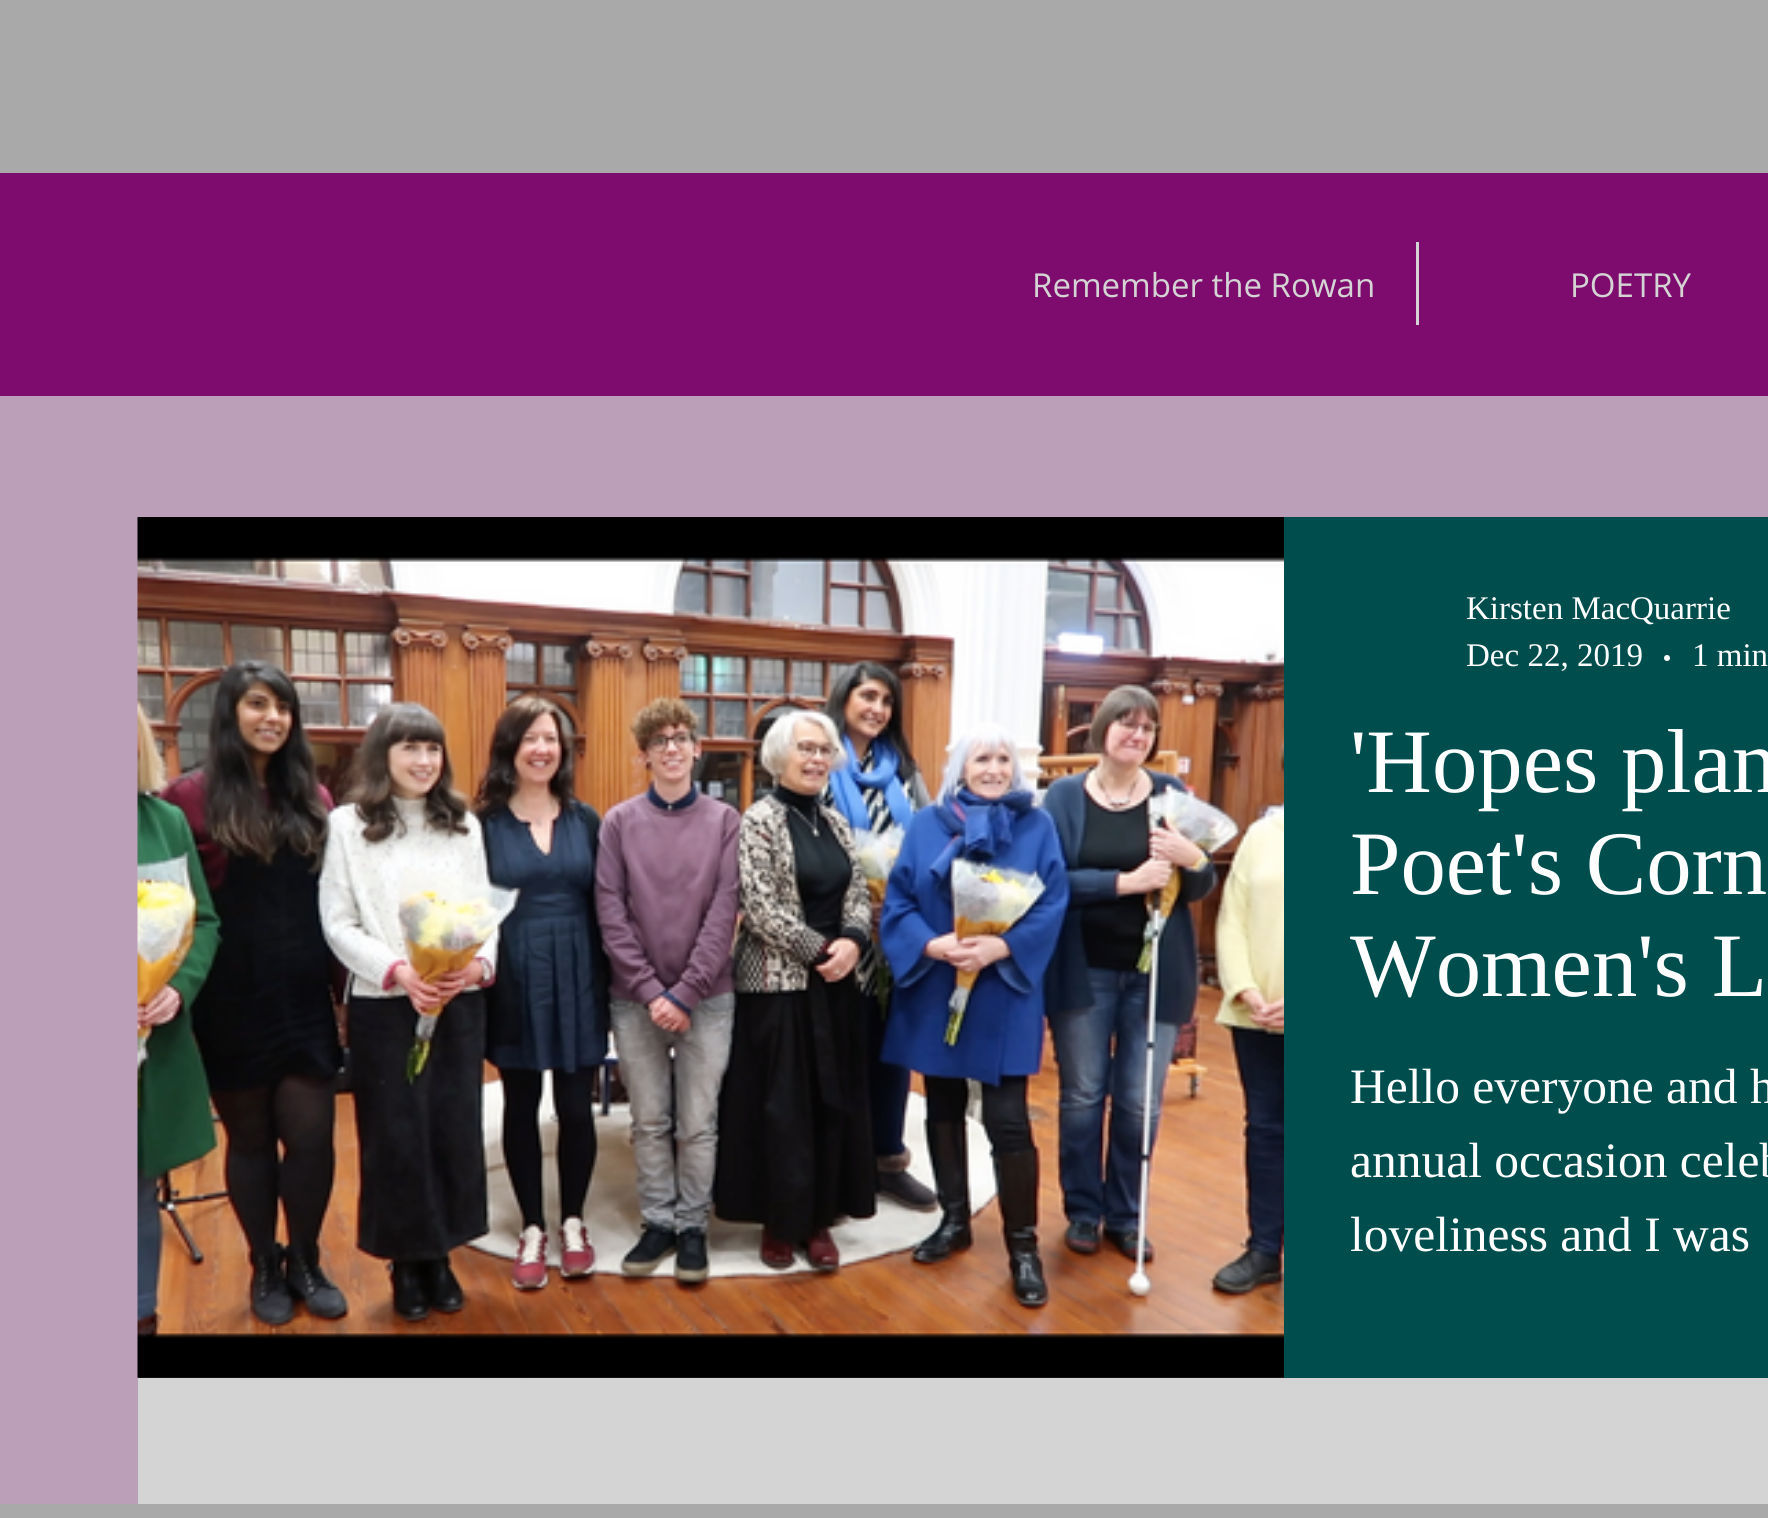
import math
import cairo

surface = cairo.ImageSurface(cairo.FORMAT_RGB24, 1768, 1518)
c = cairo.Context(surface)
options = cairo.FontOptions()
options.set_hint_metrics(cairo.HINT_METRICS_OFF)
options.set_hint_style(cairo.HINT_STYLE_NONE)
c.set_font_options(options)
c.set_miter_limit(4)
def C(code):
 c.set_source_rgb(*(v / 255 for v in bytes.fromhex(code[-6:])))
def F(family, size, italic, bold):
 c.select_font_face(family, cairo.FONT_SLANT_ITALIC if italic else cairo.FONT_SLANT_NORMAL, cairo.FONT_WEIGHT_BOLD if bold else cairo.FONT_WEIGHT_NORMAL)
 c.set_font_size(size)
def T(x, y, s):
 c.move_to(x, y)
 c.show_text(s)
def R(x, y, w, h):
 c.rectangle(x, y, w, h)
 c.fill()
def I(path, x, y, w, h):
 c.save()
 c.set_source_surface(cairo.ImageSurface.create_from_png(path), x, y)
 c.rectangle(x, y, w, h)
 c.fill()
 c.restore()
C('aaa9aa')
c.paint()
C('7e0c6e')
R(0,173,1768,223)
F('Open Sans',33,0,0)
C('d4d4d4')
T(1032,297,'Remember the Rowan')
R(1416,242,3,83)
T(1570,297,'POETRY')
C('bb9eb7')
R(0,396,1768,1108)
C('d4d4d4')
R(138,1377,1630,127)
I('2.png',138,1377,1146,1)
I('1.png',137,517,1147,861)
C('004d4e')
R(1284,517,484,861)
F('Liberation Serif',33,0,0)
C('ffffff')
T(1466,619,'Kirsten MacQuarrie')
T(1466,666,'Dec 22, 2019')
c.new_path()
c.arc(1667,658,3,0,2 * math.pi)
c.fill()
T(1692,666,'1 min')
F('Liberation Serif',90.75,0,0)
T(1350,792,'\'Hopes plan')
T(1350,894,'Poet\'s Corn')
T(1350,996,'Women\'s L')
F('Liberation Serif',49.5,0,0)
T(1350,1103,'Hello everyone and h')
T(1350,1177,'annual occasion celeb')
T(1350,1251,'loveliness and I was')
surface.write_to_png('o.png')
